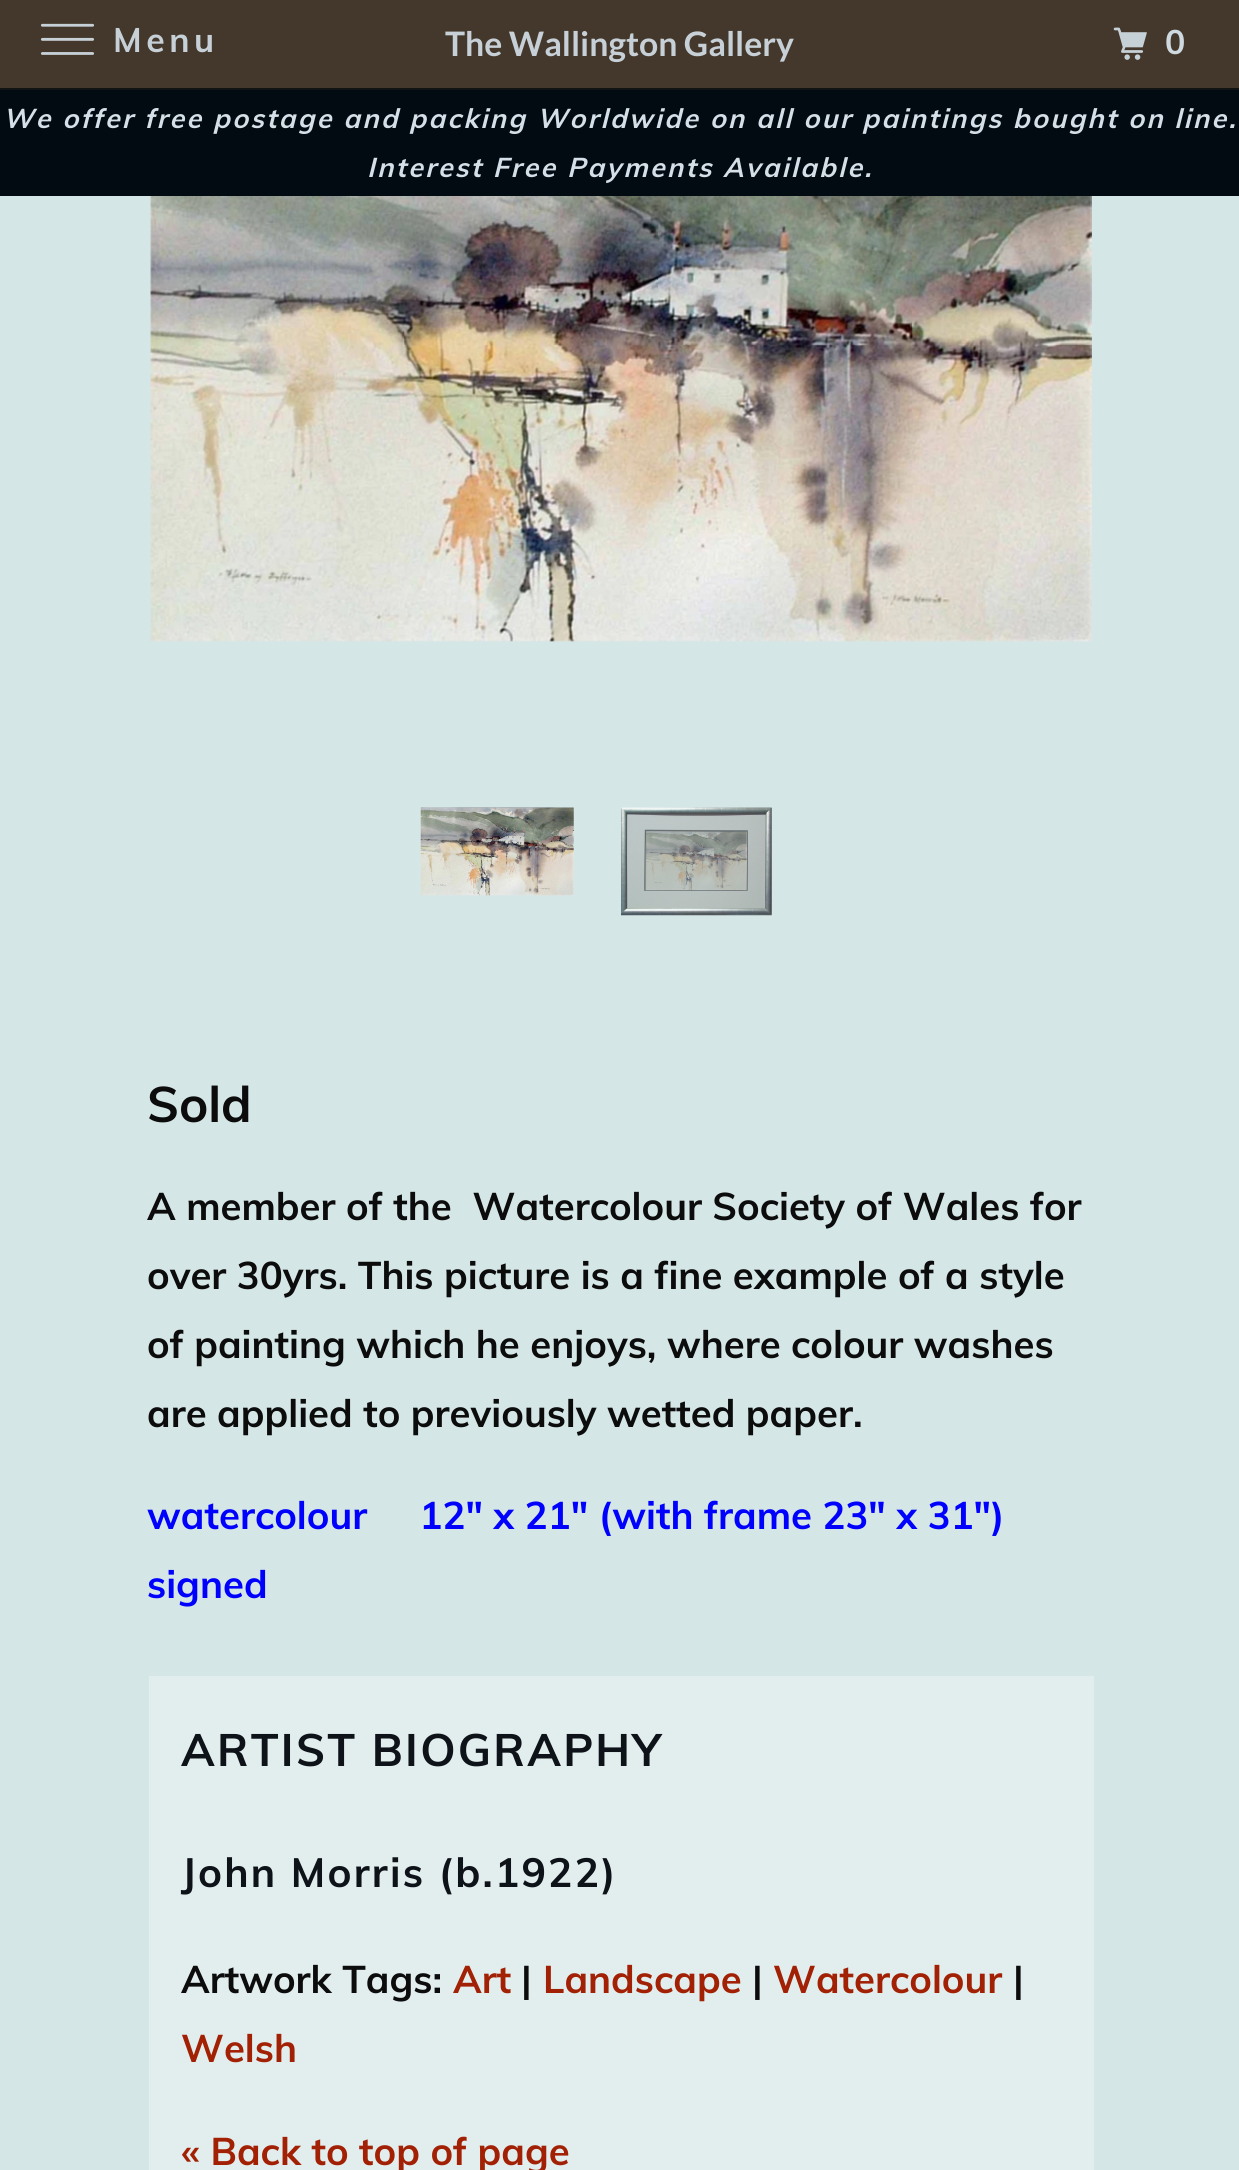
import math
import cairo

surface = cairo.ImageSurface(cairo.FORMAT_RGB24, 1239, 2170)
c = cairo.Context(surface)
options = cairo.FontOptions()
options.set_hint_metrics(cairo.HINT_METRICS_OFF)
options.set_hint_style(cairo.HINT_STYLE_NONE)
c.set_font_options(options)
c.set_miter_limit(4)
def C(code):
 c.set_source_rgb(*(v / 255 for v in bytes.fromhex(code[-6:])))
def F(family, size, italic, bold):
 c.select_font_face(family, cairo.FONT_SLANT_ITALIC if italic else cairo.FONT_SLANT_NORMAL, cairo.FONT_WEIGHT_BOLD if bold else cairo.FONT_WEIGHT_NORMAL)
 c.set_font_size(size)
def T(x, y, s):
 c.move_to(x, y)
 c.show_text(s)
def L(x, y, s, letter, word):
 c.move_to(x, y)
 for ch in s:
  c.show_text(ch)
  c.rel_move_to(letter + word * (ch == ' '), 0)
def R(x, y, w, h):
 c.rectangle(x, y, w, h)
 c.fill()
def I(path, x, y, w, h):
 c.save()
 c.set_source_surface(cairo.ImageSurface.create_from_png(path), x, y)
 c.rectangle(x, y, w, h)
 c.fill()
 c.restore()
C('d5e6e6')
c.paint()
C('121414')
R(0,88,1239,2)
C('43382b')
R(0,0,1239,88)
I('1.png',40,23,55,32)
F('Muli',33.75,0,1)
C('c7d0d7')
L(113,52,'Menu',4.5,0)
F('Lato',33.75,0,1)
T(445,56,'The Wallington Gallery')
I('2.png',1113,27,34,33)
F('Muli',33.75,0,1)
C('ced9e0')
L(1165,54,'0',4.5,0)
C('020b12')
R(0,90,1239,106)
F('Muli',27,1,1)
C('d4dfe8')
L(3,128,'We offer free postage and packing Worldwide on all our paintings bought on line.',2.25,0)
L(367,177,'Interest Free Payments Available.',2.25,0)
I('3.png',150,196,942,446)
I('4.png',420,807,154,89)
I('5.png',621,807,151,109)
F('Muli',49.5,0,1)
C('0c0c0d')
T(147,1122,'Sold')
F('Muli',38.25,0,1)
T(147,1220,'A member of the  Watercolour Society of Wales for')
T(147,1289,'over 30yrs. This picture is a fine example of a style')
T(147,1358,'of painting which he enjoys, where colour washes')
T(147,1427,'are applied to previously wetted paper.')
C('0000ff')
T(147,1529,'watercolour     12" x 21" (with frame 23" x 31")')
T(147,1598,'signed')
C('e2eeee')
R(149,1676,945,494)
F('Muli',45,0,1)
C('0e1219')
L(181,1766,'ARTIST BIOGRAPHY',2.25,0)
F('Muli',40.5,0,1)
L(181,1887,'John Morris (b.1922)',2.25,0)
F('Muli',38.25,0,1)
C('0c0c0d')
T(181,1993,'Artwork Tags:')
C('a22104')
T(453,1993,'Art')
C('0c0c0d')
T(521,1993,'|')
C('a22104')
T(543,1993,'Landscape')
C('0c0c0d')
T(752,1993,'|')
C('a22104')
T(773,1993,'Watercolour')
C('0c0c0d')
T(1013,1993,'|')
C('a22104')
T(181,2062,'Welsh')
T(181,2165,'« Back to top of page')
surface.write_to_png('o.png')
